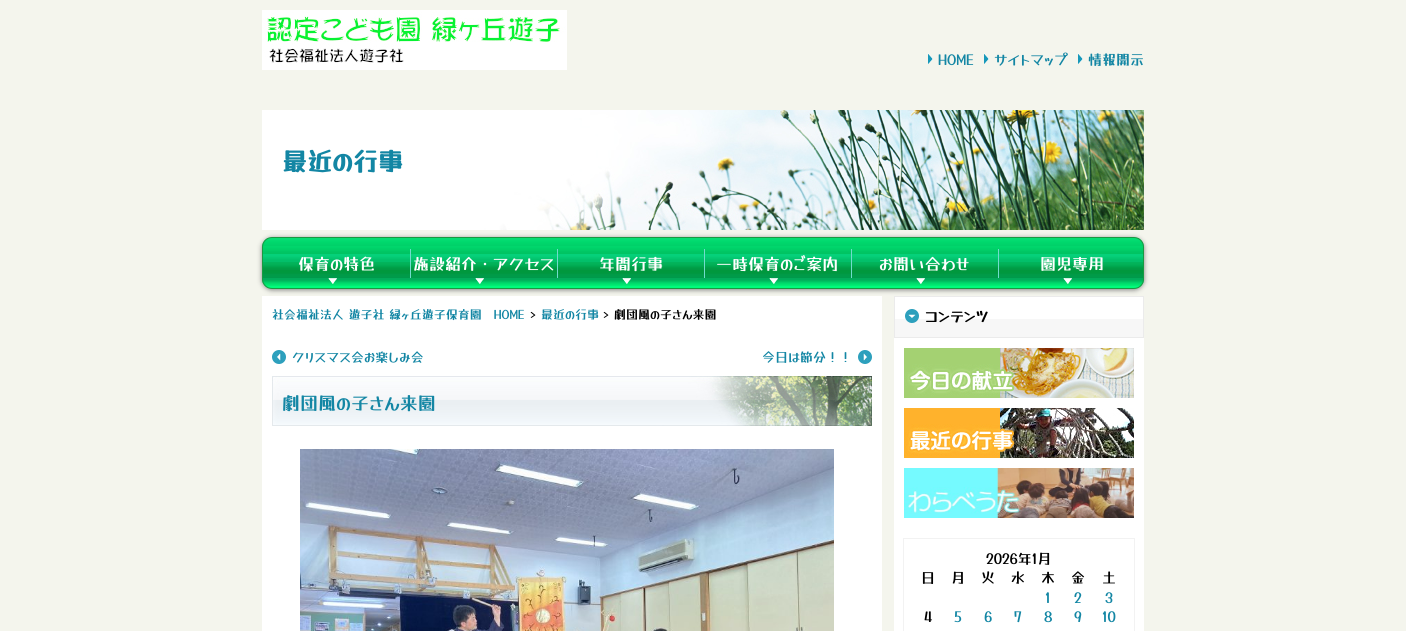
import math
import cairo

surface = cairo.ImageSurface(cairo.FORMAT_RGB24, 1406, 631)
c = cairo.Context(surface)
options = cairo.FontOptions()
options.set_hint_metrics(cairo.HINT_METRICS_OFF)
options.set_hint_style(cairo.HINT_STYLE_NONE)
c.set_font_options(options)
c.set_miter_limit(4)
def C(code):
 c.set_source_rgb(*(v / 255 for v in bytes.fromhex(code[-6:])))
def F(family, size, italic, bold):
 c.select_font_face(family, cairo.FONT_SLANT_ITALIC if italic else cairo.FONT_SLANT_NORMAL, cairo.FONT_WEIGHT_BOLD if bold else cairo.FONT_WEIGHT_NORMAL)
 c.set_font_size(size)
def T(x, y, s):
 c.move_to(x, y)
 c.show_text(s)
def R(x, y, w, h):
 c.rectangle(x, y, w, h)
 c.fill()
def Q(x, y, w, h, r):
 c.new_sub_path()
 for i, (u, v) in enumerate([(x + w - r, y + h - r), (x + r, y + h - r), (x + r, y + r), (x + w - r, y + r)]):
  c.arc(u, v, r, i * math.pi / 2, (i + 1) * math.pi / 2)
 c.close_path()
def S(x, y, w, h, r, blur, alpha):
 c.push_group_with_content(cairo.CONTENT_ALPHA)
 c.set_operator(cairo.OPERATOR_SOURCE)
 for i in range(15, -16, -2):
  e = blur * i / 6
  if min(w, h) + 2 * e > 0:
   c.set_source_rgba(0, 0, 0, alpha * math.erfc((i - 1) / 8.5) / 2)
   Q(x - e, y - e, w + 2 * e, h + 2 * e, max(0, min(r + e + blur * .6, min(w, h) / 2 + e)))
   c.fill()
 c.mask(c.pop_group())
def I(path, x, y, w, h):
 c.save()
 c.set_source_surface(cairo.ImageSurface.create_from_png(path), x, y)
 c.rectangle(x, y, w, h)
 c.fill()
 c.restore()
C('f4f5ed')
c.paint()
I('1.png',262,10,305,60)
I('2.png',928,53,5,11)
F('Yusei Magic',14,0,0)
C('1386a4')
T(938,65,'HOME')
I('2.png',984,53,5,11)
T(994,65,'サイトマップ')
I('2.png',1078,53,5,11)
T(1088,65,'情報開示')
I('3.png',262,110,882,120)
F('Yusei Magic',25,0,1)
T(282,171,'最近の行事')
C('818181')
S(262,238,882,52,10,2.5,1)
I('4.png',262,238,882,50)
Q(262.5,237.5,881,51,9.5)
C('199942')
c.set_line_width(1)
c.stroke()
F('Yusei Magic',16,0,0)
C('ffffff')
T(298,270,'保育の特色')
I('5.png',328,278,9,6)
C('71dccc')
R(410,249,1,29)
C('ffffff')
T(413,270,'施設紹介・アクセス')
I('5.png',475,278,9,6)
C('71dccc')
R(557,249,1,29)
C('ffffff')
T(599,270,'年間行事')
I('5.png',622,278,9,6)
C('71dccc')
R(704,249,1,29)
C('ffffff')
T(716,270,'一時保育のご案内')
I('5.png',769,278,9,6)
C('71dccc')
R(851,249,1,29)
C('ffffff')
T(879,270,'お問い合わせ')
I('5.png',916,278,9,6)
C('71dccc')
R(998,249,1,29)
C('ffffff')
T(1040,270,'園児専用')
I('5.png',1063,278,9,6)
R(262,296,620,335)
F('Yusei Magic',12,0,0)
C('1386a4')
T(272,319,'社会福祉法人 遊子社 緑ヶ丘遊子保育園　HOME')
C('000000')
T(530,319,'>')
C('1386a4')
T(541,319,'最近の行事')
C('000000')
T(603,319,'>')
T(614,319,'劇団風の子さん来園')
I('6.png',272,350,14,14)
F('Yusei Magic',13,0,0)
C('1386a4')
T(292,362,'クリスマス会お楽しみ会')
I('7.png',858,350,14,14)
T(762,362,'今日は節分！！')
I('8.png',272,376,600,50)
F('Yusei Magic',18,0,0)
T(282,410,'劇団風の子さん来園')
I('9.png',300,449,534,182)
C('ffffff')
R(894,297,250,334)
C('f7f7f7')
R(895,319,248,18)
c.rectangle(894.5,296.5,249,41)
C('ebebeb')
c.stroke()
I('10.png',905,309,14,14)
F('Yusei Magic',14,0,1)
C('000000')
T(925,322,'コンテンツ')
I('11.png',904,348,230,50)
I('12.png',904,408,230,50)
I('13.png',904,468,230,50)
c.rectangle(903.5,538.5,231,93)
C('f2f2f2')
c.stroke()
F('Yusei Magic',14,0,0)
C('000000')
T(986,564,'2026年1月')
T(921,583,'日')
T(951,583,'月')
T(981,583,'火')
T(1011,583,'水')
T(1041,583,'木')
T(1071,583,'金')
T(1102,583,'土')
C('1386a4')
T(1045,603,'1')
T(1074,603,'2')
T(1105,603,'3')
C('000000')
T(924,622,'4')
C('1386a4')
T(954,622,'5')
T(984,622,'6')
T(1014,622,'7')
T(1044,622,'8')
T(1074,622,'9')
T(1102,622,'10')
surface.write_to_png('o.png')
